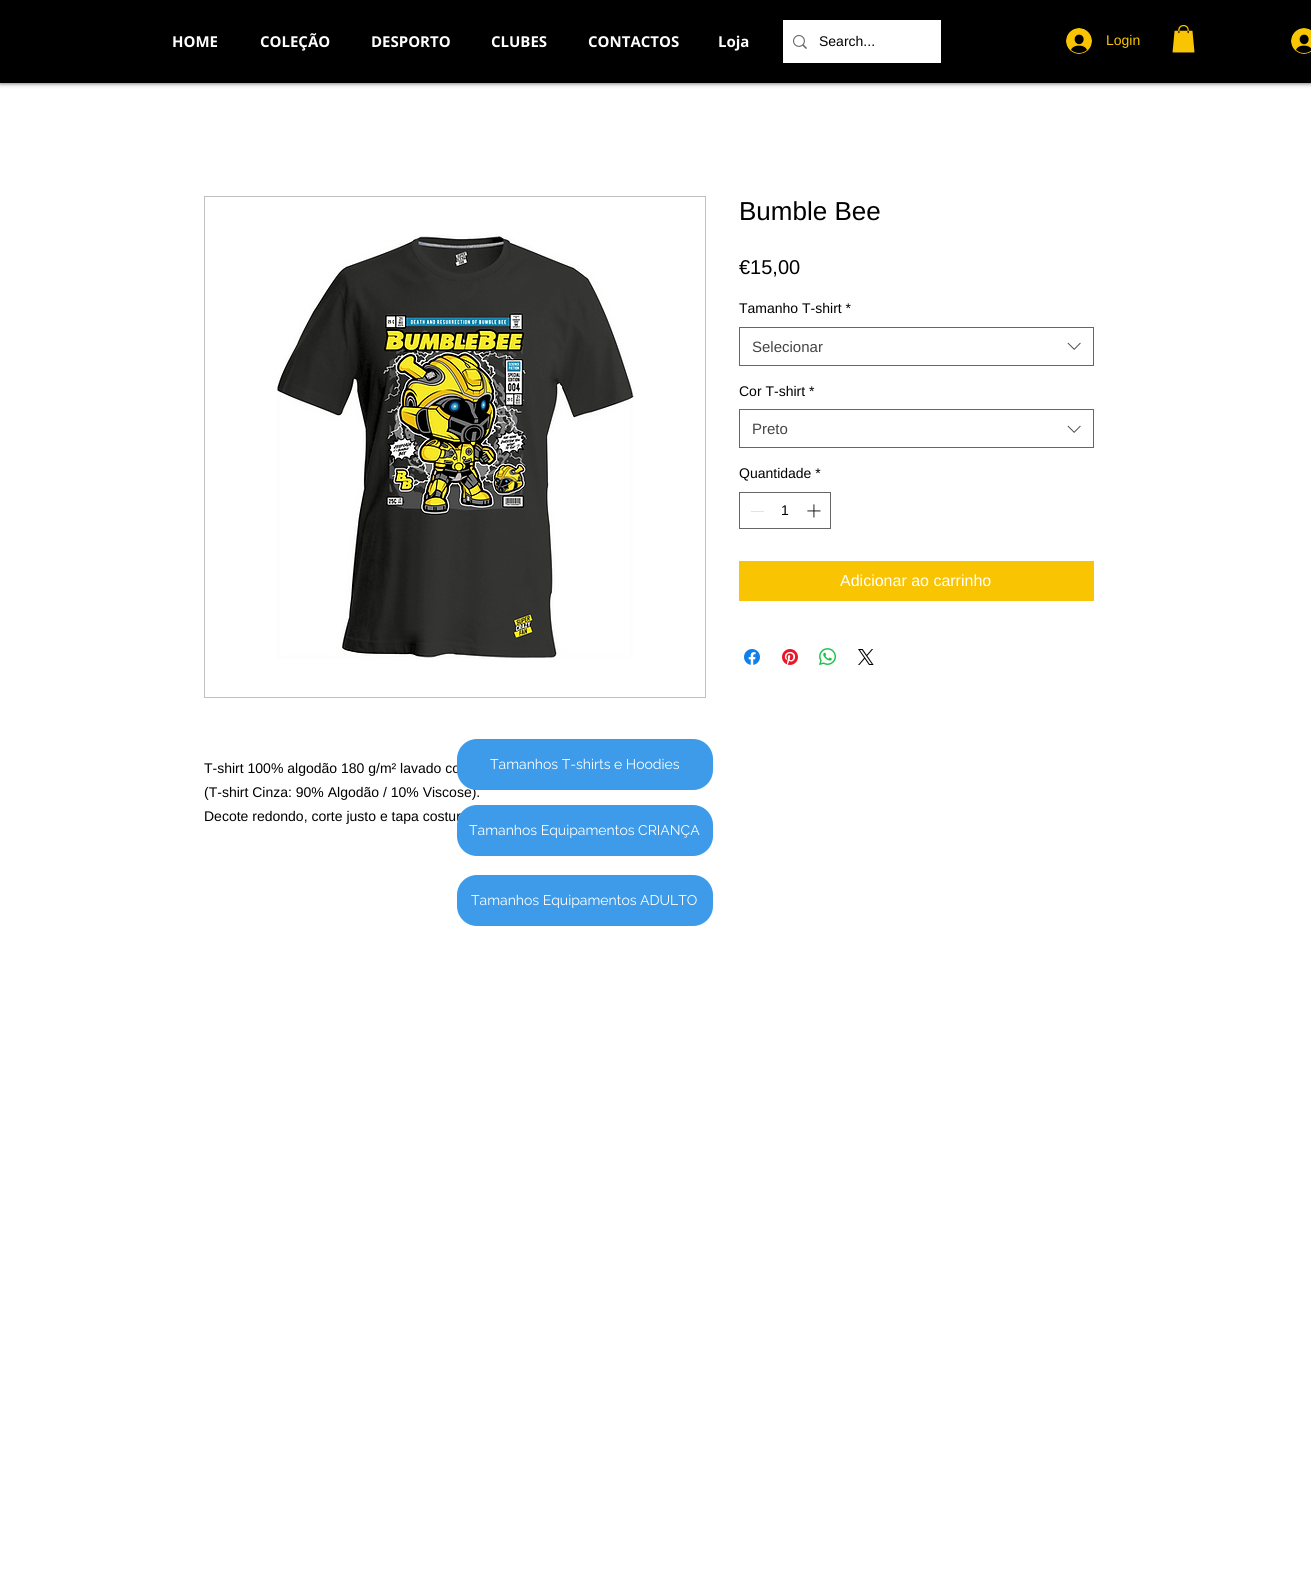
import math
import cairo

surface = cairo.ImageSurface(cairo.FORMAT_RGB24, 1311, 1572)
c = cairo.Context(surface)
options = cairo.FontOptions()
options.set_hint_metrics(cairo.HINT_METRICS_OFF)
options.set_hint_style(cairo.HINT_STYLE_NONE)
c.set_font_options(options)
c.set_miter_limit(4)
def C(code):
 c.set_source_rgb(*(v / 255 for v in bytes.fromhex(code[-6:])))
def F(family, size, italic, bold):
 c.select_font_face(family, cairo.FONT_SLANT_ITALIC if italic else cairo.FONT_SLANT_NORMAL, cairo.FONT_WEIGHT_BOLD if bold else cairo.FONT_WEIGHT_NORMAL)
 c.set_font_size(size)
def T(x, y, s):
 c.move_to(x, y)
 c.show_text(s)
def R(x, y, w, h):
 c.rectangle(x, y, w, h)
 c.fill()
def Q(x, y, w, h, r):
 c.new_sub_path()
 for i, (u, v) in enumerate([(x + w - r, y + h - r), (x + r, y + h - r), (x + r, y + r), (x + w - r, y + r)]):
  c.arc(u, v, r, i * math.pi / 2, (i + 1) * math.pi / 2)
 c.close_path()
def S(x, y, w, h, r, blur, alpha):
 c.push_group_with_content(cairo.CONTENT_ALPHA)
 c.set_operator(cairo.OPERATOR_SOURCE)
 for i in range(15, -16, -2):
  e = blur * i / 6
  if min(w, h) + 2 * e > 0:
   c.set_source_rgba(0, 0, 0, alpha * math.erfc((i - 1) / 8.5) / 2)
   Q(x - e, y - e, w + 2 * e, h + 2 * e, max(0, min(r + e + blur * .6, min(w, h) / 2 + e)))
   c.fill()
 c.mask(c.pop_group())
def I(path, x, y, w, h):
 c.save()
 c.set_source_surface(cairo.ImageSurface.create_from_png(path), x, y)
 c.rectangle(x, y, w, h)
 c.fill()
 c.restore()
C('ffffff')
c.paint()
C('000000')
S(0,0,1311,83,0,2.5,.7)
C('000000')
R(0,0,1311,83)
F('Open Sans',15,0,1)
C('ffffff')
T(172,47,'HOME')
T(260,47,'COLEÇÃO')
T(371,47,'DESPORTO')
T(491,47,'CLUBES')
T(588,47,'CONTACTOS')
T(718,47,'Loja')
R(783,20,158,43)
I('1.png',793,35,14,14)
F('Liberation Sans',14,0,0)
C('000000')
T(819,46,'Search...')
I('2.png',1066,28,26,26)
C('f9c402')
T(1106,45,'Login')
I('3.png',1172,25,23,28)
I('4.png',1291,28,20,26)
F('Liberation Sans',26,0,0)
C('000000')
T(739,220,'Bumble Bee')
F('Liberation Sans',20,0,0)
T(739,274,'€15,00')
F('Liberation Sans',14,0,0)
T(739,313,'Tamanho T-shirt *')
c.rectangle(739.5,327.5,354,38)
C('666666')
c.set_line_width(1)
c.stroke()
F('Liberation Sans',15,0,0)
C('444444')
T(752,352,'Selecionar')
I('5.png',1067,342,14,8)
F('Liberation Sans',14,0,0)
C('000000')
T(739,396,'Cor T-shirt *')
c.rectangle(739.5,409.5,354,38)
C('666666')
c.stroke()
F('Liberation Sans',15,0,0)
C('444444')
T(752,434,'Preto')
I('5.png',1067,425,14,8)
F('Liberation Sans',14,0,0)
C('000000')
T(739,478,'Quantidade *')
c.rectangle(739.5,492.5,91,36)
C('666666')
c.stroke()
C('e3e3e3')
R(751,511,13,1)
C('000000')
T(781,515,'1')
I('6.png',807,504,14,14)
C('f9c402')
R(739,561,355,40)
F('Liberation Sans',16,0,0)
C('ffffff')
T(840,586,'Adicionar ao carrinho')
I('7.png',744,649,16,16)
I('8.png',782,649,16,16)
I('9.png',819,648,17,17)
I('10.png',858,649,16,16)
c.rectangle(204.5,196.5,501,501)
C('c0c0c0')
c.stroke()
I('11.png',276,235,358,424)
F('Liberation Sans',14,0,0)
C('000000')
T(204,773,'T-shirt 100% algodão 180 g/m² lavado co')
T(204,797,'(T-shirt Cinza: 90% Algodão / 10% Viscose).')
T(204,821,'Decote redondo, corte justo e tapa costur')
C('3d9be9')
Q(457,739,256,51,20)
c.fill()
F('Raleway',14,0,0)
C('ffffff')
T(490,769,'Tamanhos T-shirts e Hoodies')
C('3d9be9')
Q(457,805,256,51,20)
c.fill()
C('ffffff')
T(469,835,'Tamanhos Equipamentos CRIANÇA')
C('3d9be9')
Q(457,875,256,51,20)
c.fill()
C('ffffff')
T(471,905,'Tamanhos Equipamentos ADULTO')
surface.write_to_png('o.png')
